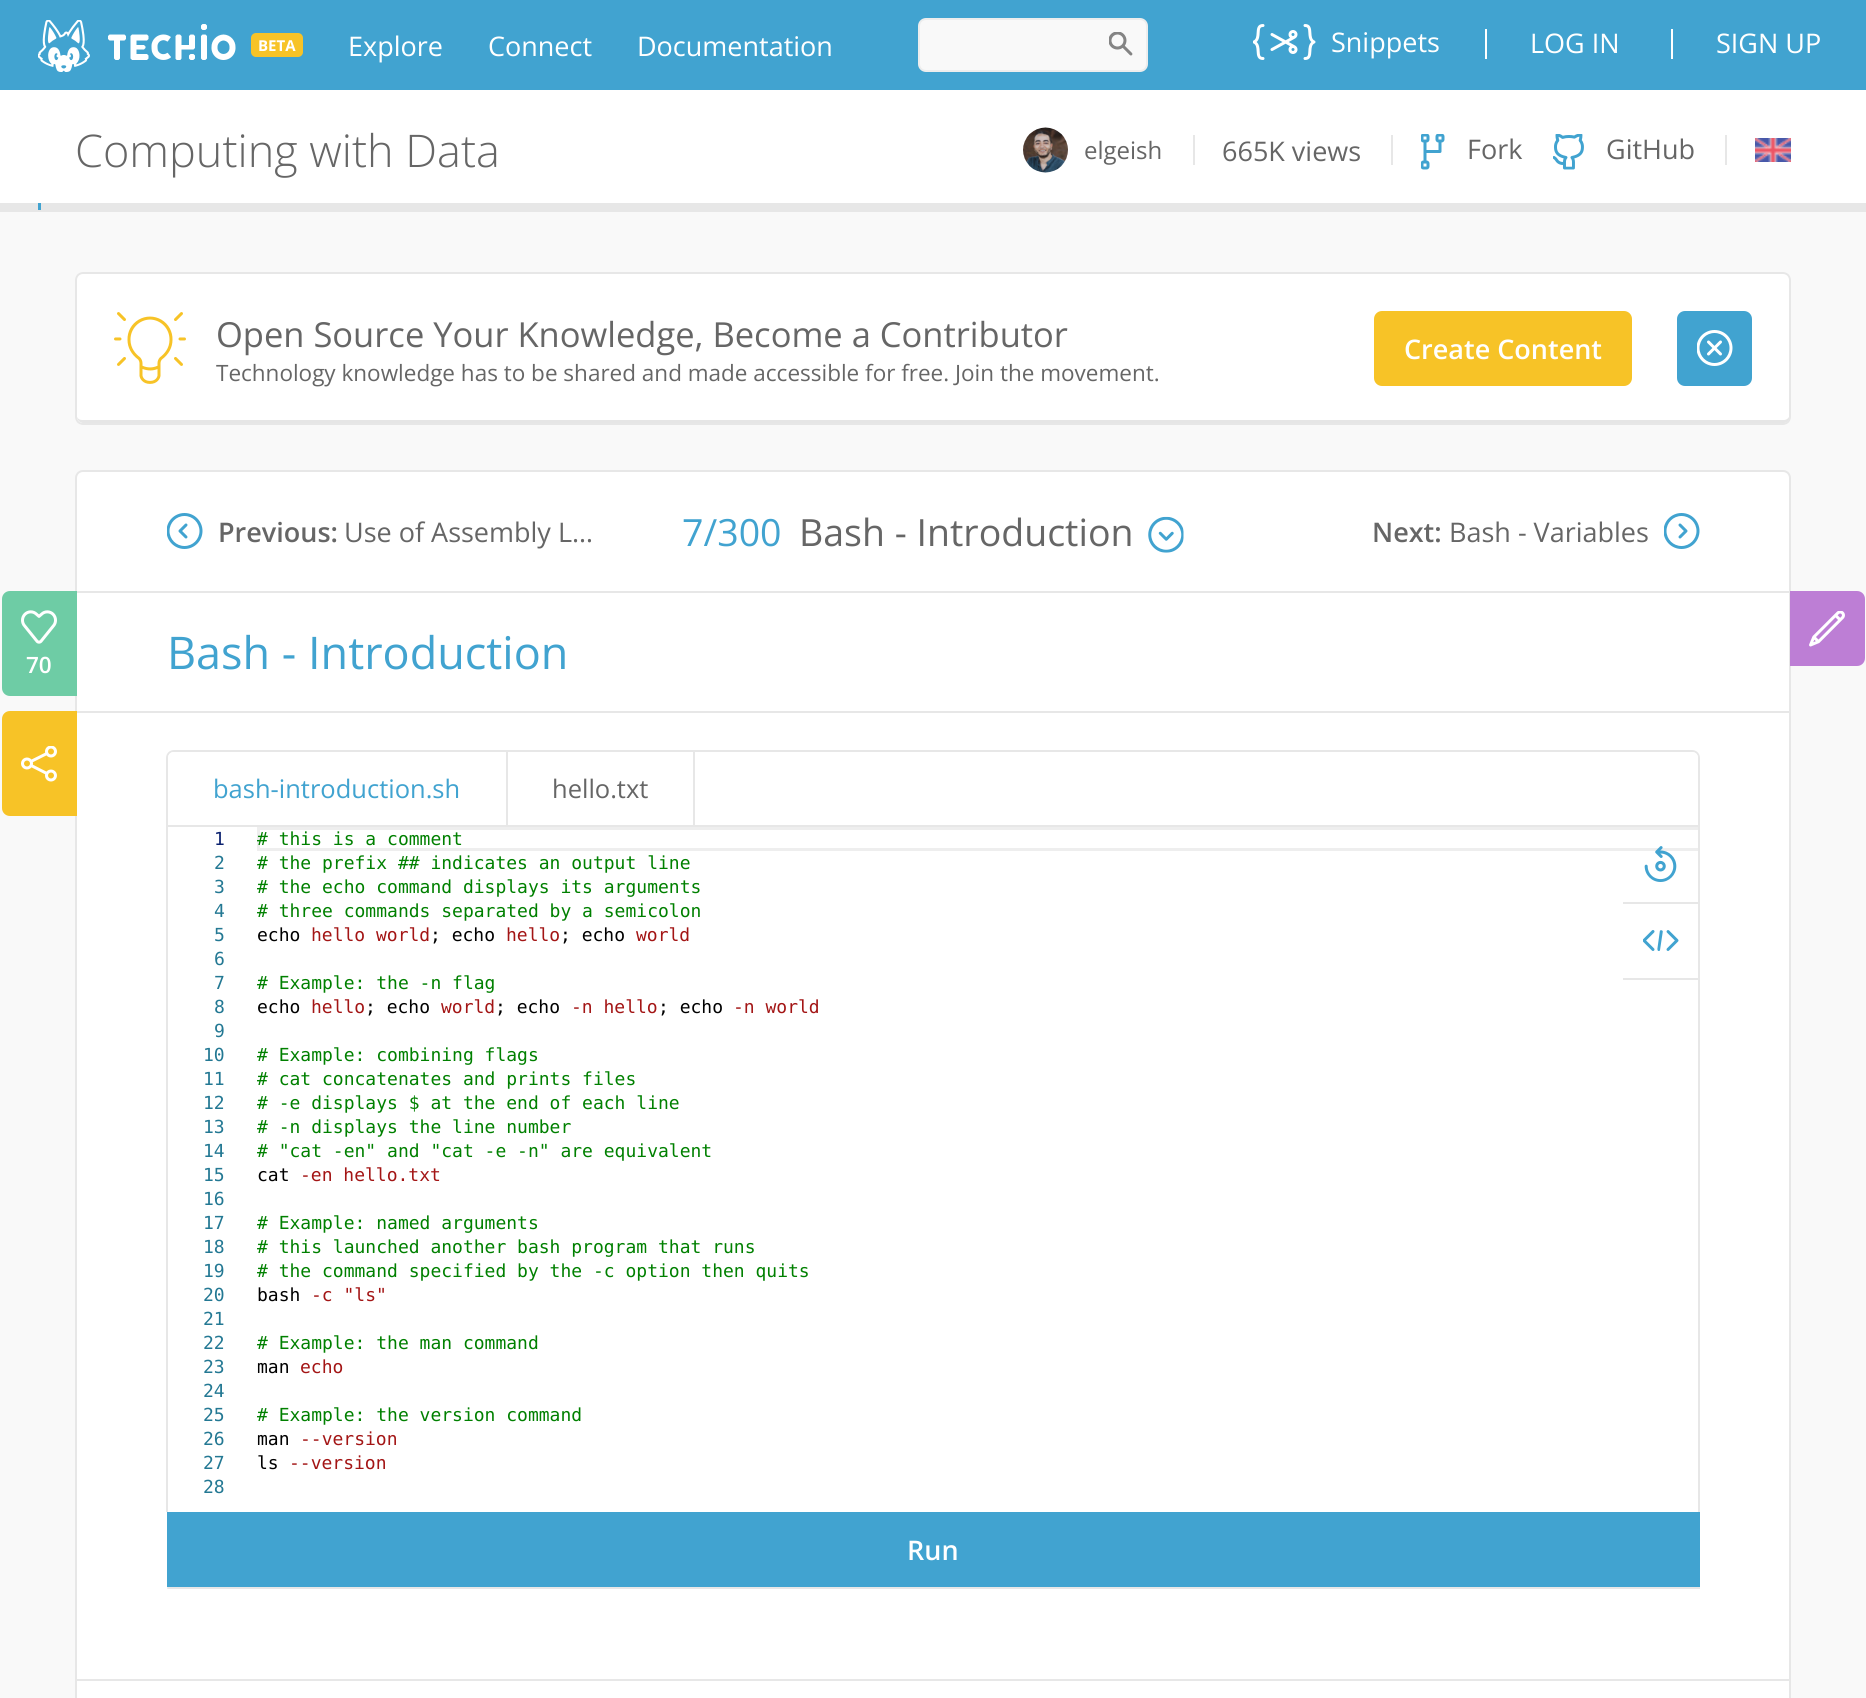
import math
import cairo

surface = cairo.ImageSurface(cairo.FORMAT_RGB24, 1866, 1698)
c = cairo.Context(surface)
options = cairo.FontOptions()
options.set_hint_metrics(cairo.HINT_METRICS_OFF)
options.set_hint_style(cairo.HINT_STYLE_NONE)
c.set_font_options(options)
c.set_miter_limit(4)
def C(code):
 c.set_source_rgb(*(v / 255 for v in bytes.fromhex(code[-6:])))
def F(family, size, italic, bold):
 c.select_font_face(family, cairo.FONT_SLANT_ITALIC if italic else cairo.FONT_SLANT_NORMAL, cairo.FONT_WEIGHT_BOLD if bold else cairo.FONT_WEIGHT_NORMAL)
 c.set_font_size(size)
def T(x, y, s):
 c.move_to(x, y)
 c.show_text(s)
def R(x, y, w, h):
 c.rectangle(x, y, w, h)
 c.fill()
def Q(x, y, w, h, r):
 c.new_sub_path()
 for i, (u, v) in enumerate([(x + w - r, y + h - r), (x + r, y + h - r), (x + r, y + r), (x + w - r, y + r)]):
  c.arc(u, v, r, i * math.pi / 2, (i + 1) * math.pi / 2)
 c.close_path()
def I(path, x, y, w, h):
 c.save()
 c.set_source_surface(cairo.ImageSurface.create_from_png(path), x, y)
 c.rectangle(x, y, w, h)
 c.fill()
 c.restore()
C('f9f9f9')
c.paint()
C('41a3d0')
R(0,0,1866,90)
I('1.png',38,20,198,52)
C('f7c327')
Q(251,33,52,24,5)
c.fill()
F('Open Sans',15,0,1)
C('ffffff')
T(258,51,'BETA')
F('Open Sans',27,0,0)
T(348,56,'Explore')
T(488,56,'Connect')
T(637,56,'Documentation')
C('f9f9f9')
Q(919,19,228,52,7)
c.fill_preserve()
C('ededed')
c.stroke()
I('2.png',1109,32,24,24)
I('3.png',1253,24,63,36)
C('ffffff')
T(1331,52,'Snippets')
R(1485,29,2,30)
T(1530,53,'LOG IN')
R(1671,29,2,30)
T(1716,53,'SIGN UP')
R(0,90,1866,113)
C('e7e7e7')
R(0,203,1866,9)
F('Open Sans Light',45,0,0)
C('666666')
T(75,167,'Computing with Data')
I('4.png',1023,127,45,46)
F('Open Sans',24,0,0)
T(1084,159,'elgeish')
C('e7e7e7')
R(1193,135,2,30)
F('Open Sans',27,0,0)
C('666666')
T(1222,161,'665K views')
C('e7e7e7')
R(1391,135,2,30)
I('5.png',1421,134,24,36)
C('666666')
T(1467,159,'Fork')
I('6.png',1553,134,31,36)
T(1606,159,'GitHub')
C('e7e7e7')
R(1725,135,2,30)
I('7.png',1755,138,36,24)
C('41a3d0')
R(38,203,3,7)
C('ffffff')
Q(75,272,1716,153,8)
c.fill()
C('e6e6e6')
c.new_path()
c.move_to(77,417)
c.curve_to(77,420,80,423,83,423)
c.line_to(1784,423)
c.curve_to(1787,423,1790,420,1790,417)
c.line_to(1790,414)
c.curve_to(1790,417,1787,420,1784,420)
c.line_to(82,420)
c.curve_to(80,420,78,419,77,417)
c.close_path()
c.fill()
Q(76,273,1714,151,7)
C('e7e7e7')
c.stroke()
I('8.png',114,312,72,72)
F('Open Sans',34.5,0,0)
C('666666')
T(216,347,'Open Source Your Knowledge, Become a Contributor')
F('Open Sans',22.5,0,0)
T(216,381,'Technology knowledge has to be shared and made accessible for free. Join the movement.')
C('f7c327')
Q(1374,311,258,75,8)
c.fill()
F('Open Sans SemiBold',27,0,0)
C('ffffff')
T(1404,359,'Create Content')
C('41a3d0')
Q(1677,311,75,75,8)
c.fill()
I('9.png',1697,330,36,36)
C('ffffff')
Q(76,471,1714,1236,7)
c.fill_preserve()
C('e7e7e7')
c.stroke()
R(77,591,1713,2)
I('10.png',167,513,36,36)
C('666666')
T(218,542,'Previous:')
F('Open Sans',27,0,0)
T(344,542,'Use of Assembly L…')
F('Open Sans',37.5,0,0)
C('41a3d0')
T(682,546,'7/300')
C('666666')
T(799,546,'Bash - Introduction')
I('11.png',1148,516,36,37)
F('Open Sans SemiBold',27,0,0)
T(1372,542,'Next:')
F('Open Sans',27,0,0)
T(1449,542,'Bash - Variables')
I('12.png',1664,513,36,36)
C('6ecca5')
c.new_path()
c.move_to(10,591)
c.line_to(77,591)
c.line_to(77,696)
c.line_to(10,696)
c.curve_to(5.5,696,2,692.5,2,688)
c.line_to(2,599)
c.curve_to(2,594.5,5.5,591,10,591)
c.close_path()
c.fill()
I('13.png',21,610,36,34)
F('Open Sans SemiBold',22.5,0,0)
C('ffffff')
T(26,673,'70')
C('f7c327')
c.new_path()
c.move_to(10,711)
c.line_to(77,711)
c.line_to(77,816)
c.line_to(10,816)
c.curve_to(5.5,816,2,812.5,2,808)
c.line_to(2,719)
c.curve_to(2,714.5,5.5,711,10,711)
c.close_path()
c.fill()
I('14.png',21,746,36,36)
C('e7e7e7')
R(77,711,1713,2)
F('Open Sans',45,0,0)
C('41a3d0')
T(167,669,'Bash - Introduction')
C('e7e7e7')
c.set_fill_rule(cairo.FILL_RULE_EVEN_ODD)
c.new_path()
c.move_to(174,750)
c.line_to(1692,750)
c.curve_to(1696,750,1700,753,1700,758)
c.line_to(1700,1512)
c.line_to(166,1512)
c.line_to(166,758)
c.curve_to(166,753,170,750,174,750)
c.close_path()
c.move_to(174,752)
c.line_to(1692,752)
c.curve_to(1695,752,1698,754,1698,758)
c.line_to(1698,1512)
c.line_to(168,1512)
c.line_to(168,758)
c.curve_to(168,754,171,752,174,752)
c.close_path()
c.fill()
C('ffffff')
c.new_path()
c.move_to(174,752)
c.line_to(1692,752)
c.curve_to(1695.5,752,1698,754.5,1698,758)
c.line_to(1698,1512)
c.line_to(168,1512)
c.line_to(168,758)
c.curve_to(168,754.5,170.5,752,174,752)
c.close_path()
c.fill()
C('e7e7e7')
R(168,825,1530,2)
R(506,752,2,73)
F('Open Sans',25.5,0,0)
C('41a3d0')
T(213,798,'bash-introduction.sh')
C('e7e7e7')
R(693,752,2,73)
C('666666')
T(552,798,'hello.txt')
F('DejaVu Sans Mono',18,0,0)
C('0b216f')
T(214,845,'1')
C('237893')
T(214,869,'2')
T(214,893,'3')
T(214,917,'4')
T(214,941,'5')
T(214,965,'6')
T(214,989,'7')
T(214,1013,'8')
T(214,1037,'9')
T(203,1061,'10')
T(203,1085,'11')
T(203,1109,'12')
T(203,1133,'13')
T(203,1157,'14')
T(203,1181,'15')
T(203,1205,'16')
T(203,1229,'17')
T(203,1253,'18')
T(203,1277,'19')
T(203,1301,'20')
T(203,1325,'21')
T(203,1349,'22')
T(203,1373,'23')
T(203,1397,'24')
T(203,1421,'25')
T(203,1445,'26')
T(203,1469,'27')
T(203,1493,'28')
C('eeeeee')
c.set_fill_rule(cairo.FILL_RULE_WINDING)
c.new_path()
c.move_to(257,827)
c.line_to(257,851)
c.line_to(1698,851)
c.line_to(1698,848)
c.line_to(260,848)
c.line_to(260,830)
c.line_to(1698,830)
c.line_to(1698,827)
c.close_path()
c.fill()
C('008000')
T(257,845,'# this is a comment')
T(257,869,'# the prefix ## indicates an output line')
T(257,893,'# the echo command displays its arguments')
T(257,917,'# three commands separated by a semicolon')
C('000000')
T(257,941,'echo')
C('a31515')
T(311,941,'hello world')
C('000000')
T(430,941,'; echo')
C('a31515')
T(506,941,'hello')
C('000000')
T(560,941,'; echo')
C('a31515')
T(636,941,'world')
C('008000')
T(257,989,'# Example: the -n flag')
C('000000')
T(257,1013,'echo')
C('a31515')
T(311,1013,'hello')
C('000000')
T(365,1013,'; echo')
C('a31515')
T(441,1013,'world')
C('000000')
T(495,1013,'; echo')
C('a31515')
T(571,1013,'-n hello')
C('000000')
T(658,1013,'; echo')
C('a31515')
T(733,1013,'-n world')
C('008000')
T(257,1061,'# Example: combining flags')
T(257,1085,'# cat concatenates and prints files')
T(257,1109,'# -e displays $ at the end of each line')
T(257,1133,'# -n displays the line number')
T(257,1157,'# "cat -en" and "cat -e -n" are equivalent')
C('000000')
T(257,1181,'cat')
C('a31515')
T(300,1181,'-en hello.txt')
C('008000')
T(257,1229,'# Example: named arguments')
T(257,1253,'# this launched another bash program that runs')
T(257,1277,'# the command specified by the -c option then quits')
C('000000')
T(257,1301,'bash')
C('a31515')
T(311,1301,'-c "ls"')
C('008000')
T(257,1349,'# Example: the man command')
C('000000')
T(257,1373,'man')
C('a31515')
T(300,1373,'echo')
C('008000')
T(257,1421,'# Example: the version command')
C('000000')
T(257,1445,'man')
C('a31515')
T(300,1445,'--version')
C('000000')
T(257,1469,'ls')
C('a31515')
T(289,1469,'--version')
I('15.png',1644,846,33,36)
C('e7e7e7')
R(1623,902,75,2)
R(1623,978,75,2)
I('16.png',1643,930,36,21)
C('41a3d0')
R(167,1512,1533,75)
F('Open Sans SemiBold',27,0,0)
C('ffffff')
T(907,1560,'Run')
C('e7e7e7')
R(168,1587,1532,2)
c.new_path()
c.arc(168,1588,1,0,2 * math.pi)
c.fill()
C('bd7ed5')
c.new_path()
c.move_to(1790,591)
c.line_to(1857,591)
c.curve_to(1861.5,591,1865,594.5,1865,599)
c.line_to(1865,658)
c.curve_to(1865,662.5,1861.5,666,1857,666)
c.line_to(1790,666)
c.close_path()
c.fill()
I('17.png',1809,611,36,36)
C('e7e7e7')
R(77,1679,1713,2)
surface.write_to_png('o.png')
